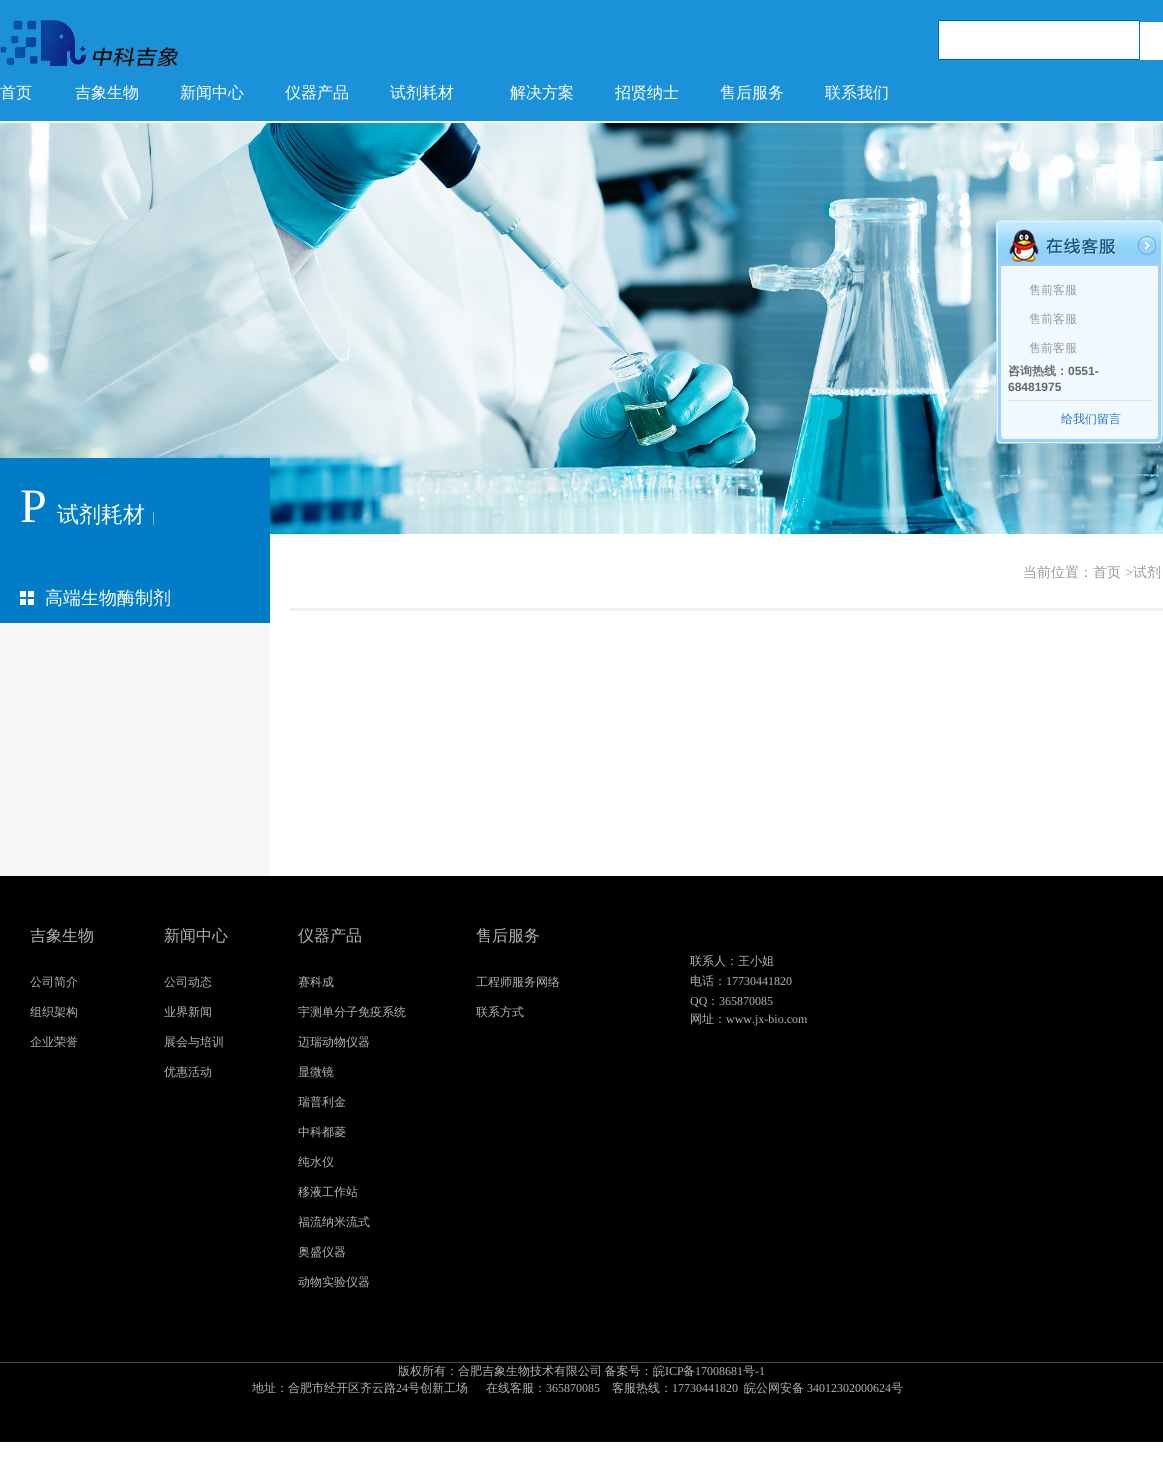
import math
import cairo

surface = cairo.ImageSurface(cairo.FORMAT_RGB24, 1163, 1476)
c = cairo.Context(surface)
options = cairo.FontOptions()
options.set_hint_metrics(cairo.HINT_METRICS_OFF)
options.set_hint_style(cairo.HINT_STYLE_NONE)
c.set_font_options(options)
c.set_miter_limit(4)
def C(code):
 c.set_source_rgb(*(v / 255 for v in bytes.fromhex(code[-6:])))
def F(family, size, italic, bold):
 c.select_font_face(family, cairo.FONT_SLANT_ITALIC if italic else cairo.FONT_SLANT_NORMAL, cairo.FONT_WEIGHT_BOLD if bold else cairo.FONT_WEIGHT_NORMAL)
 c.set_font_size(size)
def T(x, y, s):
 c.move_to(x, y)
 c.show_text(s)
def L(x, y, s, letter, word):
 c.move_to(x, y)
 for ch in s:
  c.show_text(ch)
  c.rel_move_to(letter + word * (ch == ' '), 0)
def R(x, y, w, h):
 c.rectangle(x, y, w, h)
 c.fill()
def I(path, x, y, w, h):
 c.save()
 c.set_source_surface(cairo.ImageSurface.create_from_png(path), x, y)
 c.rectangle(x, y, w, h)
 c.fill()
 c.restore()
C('ffffff')
c.paint()
C('1a91d9')
R(0,0,1163,121)
I('1.png',0,20,178,46)
C('ffffff')
c.rectangle(938.5,20.5,201,39)
c.fill_preserve()
C('006db0')
c.set_line_width(1)
c.stroke()
C('ffffff')
R(1140,22,23,38)
F('WenQuanYi Zen Hei Medium',16,0,0)
T(0,98,'首页')
T(75,98,'吉象生物')
T(180,98,'新闻中心')
T(285,98,'仪器产品')
T(390,98,'试剂耗材')
T(510,98,'解决方案')
T(615,98,'招贤纳士')
T(720,98,'售后服务')
T(825,98,'联系我们')
I('2.png',0,123,1163,411)
I('3.png',996,220,167,46)
I('4.png',1137,236,19,19)
I('5.png',996,266,167,170)
F('WenQuanYi Zen Hei Medium',12,0,0)
C('999999')
T(1029,294,'售前客服')
T(1029,323,'售前客服')
T(1029,352,'售前客服')
F('WenQuanYi Zen Hei',12,0,1)
C('666666')
T(1008,375,'咨询热线：')
F('Liberation Sans',12,0,1)
T(1068,375,'0551-')
T(1008,391,'68481975')
c.new_path()
c.move_to(1008,400.5)
c.line_to(1151,400.5)
C('cccccc')
c.set_dash([1,1])
c.stroke()
F('WenQuanYi Zen Hei Medium',12,0,0)
C('2575c7')
T(1061,423,'给我们留言')
I('6.png',996,436,167,8)
C('f7f7f7')
R(0,623,270,253)
C('017cc6')
R(0,458,270,165)
F('Liberation Serif',48,0,0)
C('ffffff')
T(20,522,'P')
F('WenQuanYi Zen Hei Medium',22,0,0)
T(57,522,'试剂耗材')
F('Liberation Serif',14,0,0)
C('cbcbcb')
T(152,522,'|')
I('7.png',20,591,14,14)
F('WenQuanYi Zen Hei Medium',18,0,0)
C('ffffff')
T(45,604,'高端生物酶制剂')
C('f0f0f0')
R(290,608,873,3)
F('WenQuanYi Zen Hei Medium',14,0,0)
C('999999')
T(1023,577,'当前位置：首页')
F('Liberation Serif',14,0,0)
T(1125,577,'>')
F('WenQuanYi Zen Hei Medium',14,0,0)
T(1133,577,'试剂')
C('000000')
R(0,876,1163,566)
F('WenQuanYi Zen Hei Medium',16,0,0)
C('b3b3b3')
T(30,941,'吉象生物')
F('WenQuanYi Zen Hei Medium',12,0,0)
T(30,986,'公司简介')
T(30,1016,'组织架构')
T(30,1046,'企业荣誉')
F('WenQuanYi Zen Hei Medium',16,0,0)
T(164,941,'新闻中心')
F('WenQuanYi Zen Hei Medium',12,0,0)
T(164,986,'公司动态')
T(164,1016,'业界新闻')
T(164,1046,'展会与培训')
T(164,1076,'优惠活动')
F('WenQuanYi Zen Hei Medium',16,0,0)
T(298,941,'仪器产品')
F('WenQuanYi Zen Hei Medium',12,0,0)
T(298,986,'赛科成')
T(298,1016,'宇测单分子免疫系统')
T(298,1046,'迈瑞动物仪器')
T(298,1076,'显微镜')
T(298,1106,'瑞普利金')
T(298,1136,'中科都菱')
T(298,1166,'纯水仪')
T(298,1196,'移液工作站')
T(298,1226,'福流纳米流式')
T(298,1256,'奥盛仪器')
T(298,1286,'动物实验仪器')
F('WenQuanYi Zen Hei Medium',16,0,0)
T(476,941,'售后服务')
F('WenQuanYi Zen Hei Medium',12,0,0)
T(476,986,'工程师服务网络')
T(476,1016,'联系方式')
T(690,965,'联系人：王小姐')
T(690,985,'电话：')
F('Liberation Serif',12,0,0)
T(726,985,'17730441820')
T(690,1005,'QQ')
F('WenQuanYi Zen Hei Medium',12,0,0)
T(707,1005,'：')
F('Liberation Serif',12,0,0)
T(719,1005,'365870085')
F('WenQuanYi Zen Hei Medium',12,0,0)
T(690,1023,'网址：')
F('Liberation Serif',12,0,0)
T(726,1023,'www.jx-bio.com')
C('484848')
R(0,1362,1163,1)
F('WenQuanYi Zen Hei Medium',12,0,0)
C('b3b3b3')
L(398,1375,'版权所有：合肥吉象生物技术有限公司 备案号：',0,-1)
T(653,1375,'皖')
F('Liberation Serif',12,0,0)
T(665,1375,'ICP')
F('WenQuanYi Zen Hei Medium',12,0,0)
T(683,1375,'备')
F('Liberation Serif',12,0,0)
T(695,1375,'17008681')
F('WenQuanYi Zen Hei Medium',12,0,0)
T(743,1375,'号')
F('Liberation Serif',12,0,0)
T(755,1375,'-1')
F('WenQuanYi Zen Hei Medium',12,0,0)
T(252,1392,'地址：合肥市经开区齐云路')
F('Liberation Serif',12,0,0)
T(396,1392,'24')
F('WenQuanYi Zen Hei Medium',12,0,0)
T(408,1392,'号创新工场')
T(486,1392,'在线客服：')
F('Liberation Serif',12,0,0)
T(546,1392,'365870085')
F('WenQuanYi Zen Hei Medium',12,0,0)
T(612,1392,'客服热线：')
F('Liberation Serif',12,0,0)
T(672,1392,'17730441820')
F('WenQuanYi Zen Hei Medium',12,0,0)
T(744,1392,'皖公网安备')
F('Liberation Serif',12,0,0)
T(807,1392,'34012302000624')
F('WenQuanYi Zen Hei Medium',12,0,0)
T(891,1392,'号')
surface.write_to_png('o.png')
